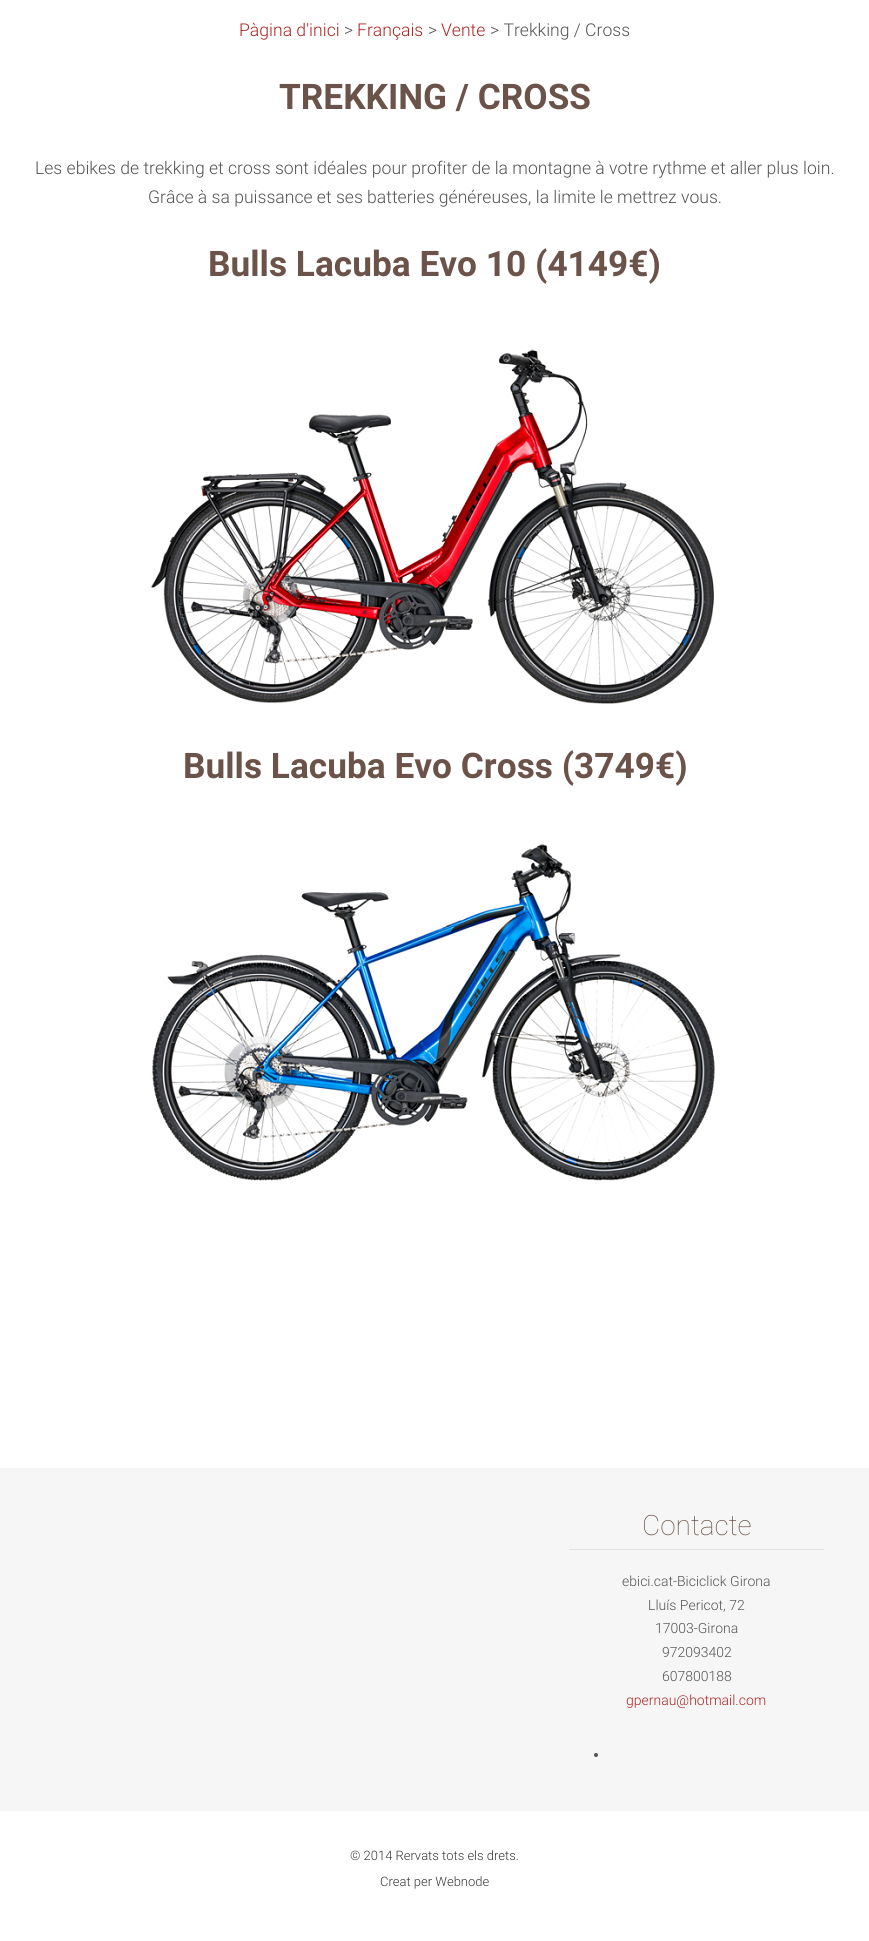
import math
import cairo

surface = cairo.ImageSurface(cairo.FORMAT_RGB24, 869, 1941)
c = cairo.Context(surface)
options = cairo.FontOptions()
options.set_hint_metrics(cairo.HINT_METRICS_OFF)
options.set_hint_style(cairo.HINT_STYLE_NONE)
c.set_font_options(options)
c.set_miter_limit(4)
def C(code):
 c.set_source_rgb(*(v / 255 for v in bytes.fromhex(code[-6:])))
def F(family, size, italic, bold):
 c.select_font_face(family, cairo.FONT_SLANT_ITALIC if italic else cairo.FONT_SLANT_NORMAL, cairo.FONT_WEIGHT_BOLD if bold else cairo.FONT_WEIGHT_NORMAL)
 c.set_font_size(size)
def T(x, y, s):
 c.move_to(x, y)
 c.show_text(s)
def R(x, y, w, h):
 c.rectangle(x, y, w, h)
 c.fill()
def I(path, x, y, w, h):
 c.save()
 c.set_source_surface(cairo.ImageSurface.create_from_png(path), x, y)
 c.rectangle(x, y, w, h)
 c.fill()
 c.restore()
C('ffffff')
c.paint()
F('Roboto Light',17.6,0,0)
C('ad2323')
T(239,36,'Pàgina d\'inici')
C('535353')
T(344,36,'>')
C('ad2323')
T(357,36,'Français')
C('535353')
T(428,36,'>')
C('ad2323')
T(441,36,'Vente')
C('535353')
T(490,36,'> Trekking / Cross')
F('Roboto',35.25,0,1)
C('6b5349')
T(279,109,'TREKKING / CROSS')
F('Roboto Light',17.6,0,0)
C('535353')
T(35,174,'Les ebikes de trekking et cross sont idéales pour profiter de la montagne à votre rythme et aller plus loin.')
T(148,203,'Grâce à sa puissance et ses batteries généreuses, la limite le mettrez vous.')
F('Roboto',35.25,0,1)
C('6b5349')
T(208,276,'Bulls Lacuba Evo 10 (4149€)')
I('1.png',151,349,563,355)
T(183,778,'Bulls Lacuba Evo Cross (3749€)')
I('2.png',152,844,563,337)
C('f6f6f6')
R(0,1468,869,343)
C('e2e2e2')
R(569,1549,255,1)
F('Roboto Thin',28,0,0)
C('6b5349')
T(642,1535,'Contacte')
F('Roboto Light',14,0,0)
C('535353')
T(622,1586,'ebici.cat-Biciclick Girona')
T(648,1610,'Lluís Pericot, 72')
T(655,1633,'17003-Girona')
T(662,1657,'972093402')
T(662,1681,'607800188')
C('ad2323')
T(626,1705,'gpernau@hotmail.com')
C('535353')
c.new_path()
c.arc(596,1755,2,0,2 * math.pi)
c.fill()
F('Roboto Light',13,0,0)
C('363636')
T(350,1860,'© 2014 Rervats tots els drets.')
T(380,1886,'Creat per Webnode')
surface.write_to_png('o.png')
